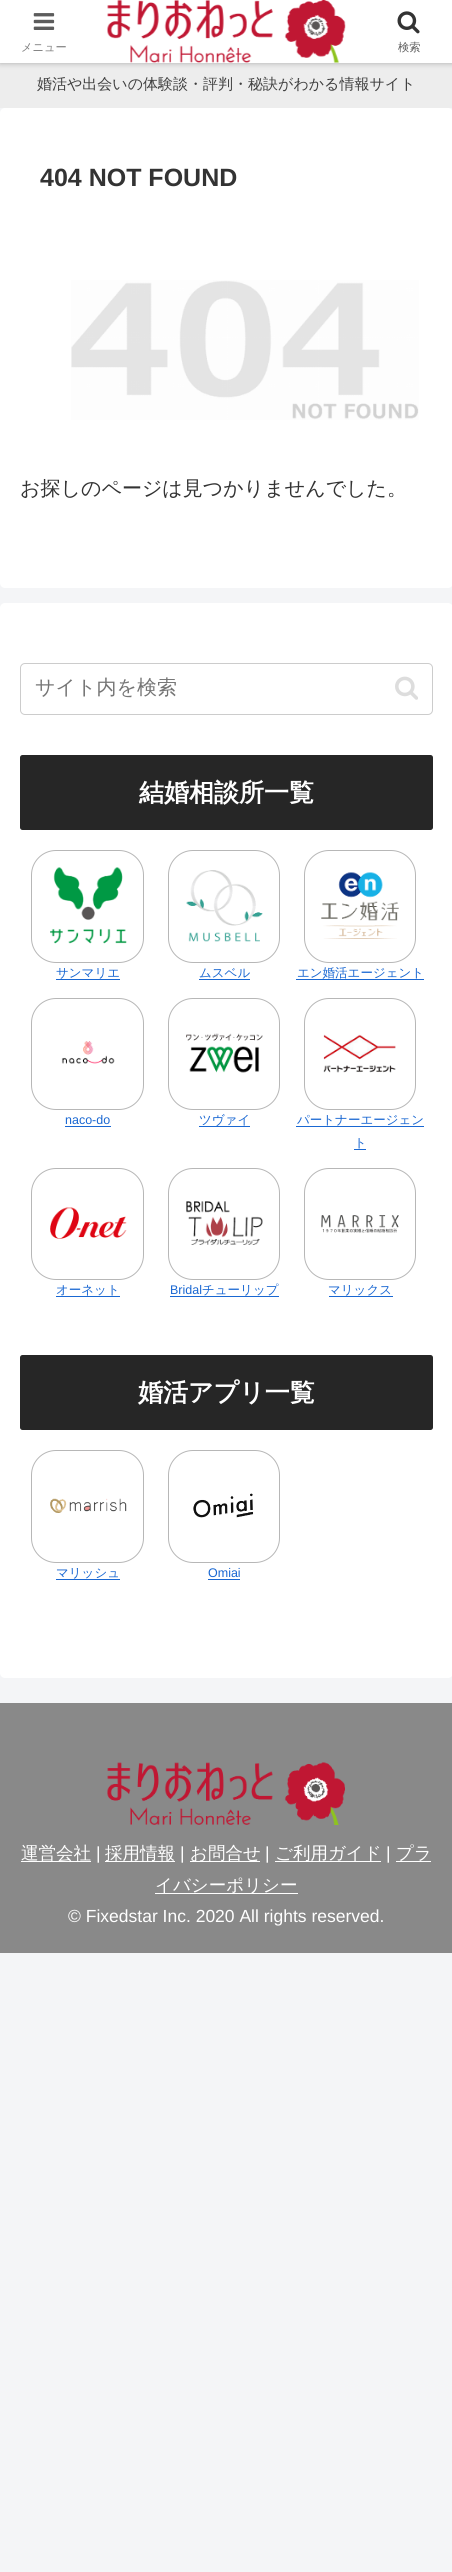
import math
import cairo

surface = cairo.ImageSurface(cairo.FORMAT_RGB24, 452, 2572)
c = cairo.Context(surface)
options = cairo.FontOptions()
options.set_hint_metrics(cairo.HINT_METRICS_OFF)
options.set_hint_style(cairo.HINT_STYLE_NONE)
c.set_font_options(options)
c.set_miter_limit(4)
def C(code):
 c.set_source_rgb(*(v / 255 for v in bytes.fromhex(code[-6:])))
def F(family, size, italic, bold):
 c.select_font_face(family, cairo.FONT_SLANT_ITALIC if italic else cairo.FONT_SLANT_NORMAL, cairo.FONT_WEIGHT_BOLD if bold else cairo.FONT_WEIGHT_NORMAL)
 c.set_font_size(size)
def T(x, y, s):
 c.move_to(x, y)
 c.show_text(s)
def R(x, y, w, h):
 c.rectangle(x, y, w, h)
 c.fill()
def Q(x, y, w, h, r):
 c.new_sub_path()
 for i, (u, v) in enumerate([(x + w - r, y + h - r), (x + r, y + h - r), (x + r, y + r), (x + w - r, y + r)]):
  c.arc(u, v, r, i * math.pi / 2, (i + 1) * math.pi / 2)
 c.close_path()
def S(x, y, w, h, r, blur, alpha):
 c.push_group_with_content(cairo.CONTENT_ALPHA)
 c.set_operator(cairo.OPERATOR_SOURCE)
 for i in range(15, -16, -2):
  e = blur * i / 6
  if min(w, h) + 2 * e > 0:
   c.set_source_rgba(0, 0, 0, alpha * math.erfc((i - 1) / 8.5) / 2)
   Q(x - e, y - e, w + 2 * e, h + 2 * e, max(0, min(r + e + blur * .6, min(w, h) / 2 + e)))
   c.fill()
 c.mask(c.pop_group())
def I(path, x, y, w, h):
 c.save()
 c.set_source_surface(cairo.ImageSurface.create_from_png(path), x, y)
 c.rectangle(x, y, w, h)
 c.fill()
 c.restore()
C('f4f5f7')
c.paint()
C('ededed')
R(0,63,452,45)
C('a9a9a9')
S(0,0,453,63,0,3,1)
C('ffffff')
R(0,0,452,63)
I('1.png',33,13,22,17)
F('WenQuanYi Zen Hei Medium',11.25,0,0)
C('7c7c7c')
T(21,51,'メニュー')
I('2.png',107,0,239,63)
I('3.png',397,11,23,23)
C('5c5c5c')
T(398,51,'検索')
F('WenQuanYi Zen Hei Medium',15,0,0)
C('3f3f3f')
T(37,89,'婚活や出会いの体験談・評判・秘訣がわかる情報サイト')
C('ffffff')
Q(0,108,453,480,5)
c.fill()
F('Liberation Sans',25,0,1)
C('333333')
T(40,186,'404 NOT FOUND')
I('4.png',71,280,348,140)
F('WenQuanYi Zen Hei Medium',20,0,0)
T(20,495,'お探しのページは見つかりませんでした。')
C('ffffff')
Q(0,603,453,1075,5)
c.fill()
Q(20.5,663.5,412,51,4.5)
C('cccccc')
c.set_line_width(1)
c.stroke()
C('757575')
T(35,694,'サイト内を検索')
I('5.png',395,676,23,24)
C('262626')
Q(20,755,413,75,2.5)
c.fill()
F('WenQuanYi Zen Hei',25,0,1)
C('ffffff')
T(139,801,'結婚相談所一覧')
Q(31.5,850.5,112,112,24.5)
C('b7b7b7')
c.stroke()
I('6.png',50,867,77,77)
F('WenQuanYi Zen Hei Medium',12.5,0,0)
C('1967d2')
T(56,977,'サンマリエ')
R(56,979,64,1)
Q(168.5,850.5,111,112,24.5)
C('b7b7b7')
c.stroke()
I('7.png',186,870,77,72)
C('1967d2')
T(199,977,'ムスベル')
R(199,979,51,1)
Q(304.5,850.5,111,112,24.5)
C('b7b7b7')
c.stroke()
I('8.png',321,872,78,67)
C('1967d2')
T(297,977,'エン婚活エージェント')
R(296,979,128,1)
Q(31.5,998.5,112,111,24.5)
C('b7b7b7')
c.stroke()
I('9.png',61,1041,54,23)
F('Liberation Sans',12.5,0,0)
C('1967d2')
T(65,1124,'naco-do')
R(65,1126,46,1)
Q(168.5,998.5,111,111,24.5)
C('b7b7b7')
c.stroke()
I('10.png',186,1033,77,40)
F('WenQuanYi Zen Hei Medium',12.5,0,0)
C('1967d2')
T(199,1124,'ツヴァイ')
R(199,1126,51,1)
Q(304.5,998.5,111,111,24.5)
C('b7b7b7')
c.stroke()
I('11.png',323,1034,73,39)
C('1967d2')
T(297,1124,'パートナーエージェン')
R(296,1126,128,1)
T(354,1147,'ト')
R(354,1149,12,1)
Q(31.5,1168.5,112,111,24.5)
C('b7b7b7')
c.stroke()
I('12.png',50,1207,77,32)
C('1967d2')
T(56,1294,'オーネット')
R(56,1296,64,1)
Q(168.5,1168.5,111,111,24.5)
C('b7b7b7')
c.stroke()
I('13.png',186,1201,77,44)
F('Liberation Sans',12.5,0,0)
C('1967d2')
T(170,1294,'Bridal')
R(170,1296,109,1)
F('WenQuanYi Zen Hei Medium',12.5,0,0)
T(202,1294,'チューリップ')
Q(304.5,1168.5,111,111,24.5)
C('b7b7b7')
c.stroke()
I('14.png',321,1215,78,18)
C('1967d2')
T(328,1294,'マリックス')
R(329,1296,64,1)
C('262626')
Q(20,1355,413,75,2.5)
c.fill()
F('WenQuanYi Zen Hei',25,0,1)
C('ffffff')
T(138,1401,'婚活アプリ一覧')
Q(31.5,1450.5,112,112,24.5)
C('b7b7b7')
c.stroke()
I('15.png',50,1498,77,15)
F('WenQuanYi Zen Hei Medium',12.5,0,0)
C('1967d2')
T(56,1577,'マリッシュ')
R(56,1579,64,1)
Q(168.5,1450.5,111,112,24.5)
C('b7b7b7')
c.stroke()
I('16.png',193,1493,61,25)
F('Liberation Sans',12.5,0,0)
C('1967d2')
T(208,1577,'Omiai')
R(208,1579,32,1)
C('898989')
R(0,1703,452,250)
I('17.png',107,1762,238,63)
C('ffffff')
R(21,1861,70,1)
F('WenQuanYi Zen Hei Medium',17.5,0,0)
T(21,1859,'運営会社')
F('Liberation Sans',17.5,0,0)
T(96,1859,'|')
R(105,1861,70,1)
F('WenQuanYi Zen Hei Medium',17.5,0,0)
T(105,1859,'採用情報')
F('Liberation Sans',17.5,0,0)
T(180,1859,'|')
R(190,1861,70,1)
F('WenQuanYi Zen Hei Medium',17.5,0,0)
T(190,1859,'お問合せ')
F('Liberation Sans',17.5,0,0)
T(265,1859,'|')
R(275,1861,106,1)
F('WenQuanYi Zen Hei Medium',17.5,0,0)
T(275,1859,'ご利用ガイド')
F('Liberation Sans',17.5,0,0)
T(386,1859,'|')
R(396,1861,35,1)
F('WenQuanYi Zen Hei Medium',17.5,0,0)
T(396,1859,'プラ')
R(155,1893,143,1)
T(155,1891,'イバシーポリシー')
F('Liberation Sans',17.5,0,0)
T(68,1922,'© Fixedstar Inc. 2020 All rights reserved.')
surface.write_to_png('o.png')
